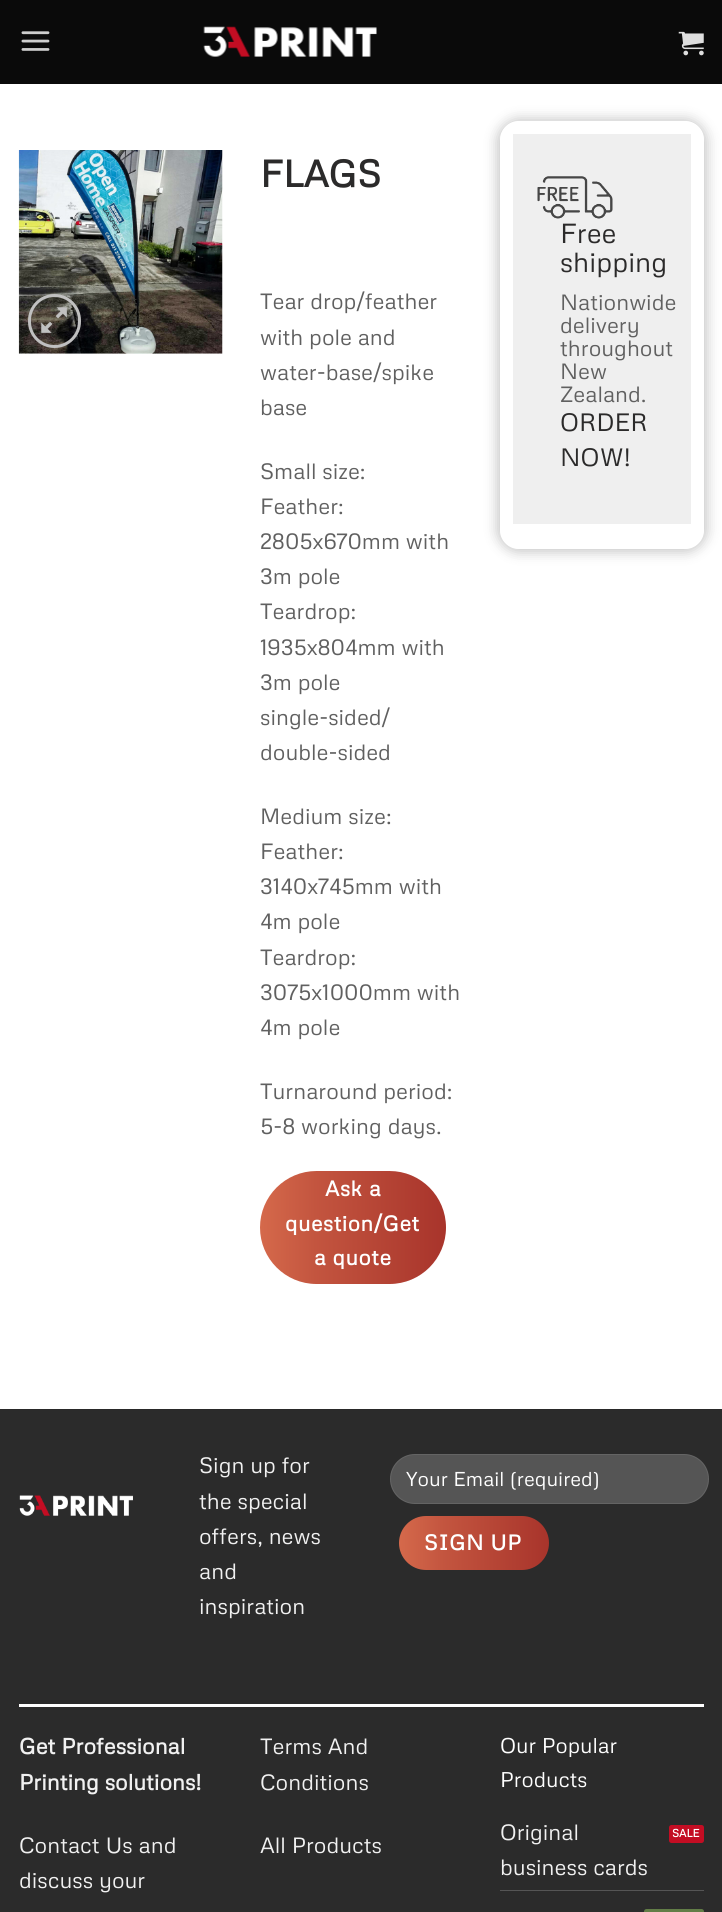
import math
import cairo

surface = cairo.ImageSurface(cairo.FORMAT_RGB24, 722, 1912)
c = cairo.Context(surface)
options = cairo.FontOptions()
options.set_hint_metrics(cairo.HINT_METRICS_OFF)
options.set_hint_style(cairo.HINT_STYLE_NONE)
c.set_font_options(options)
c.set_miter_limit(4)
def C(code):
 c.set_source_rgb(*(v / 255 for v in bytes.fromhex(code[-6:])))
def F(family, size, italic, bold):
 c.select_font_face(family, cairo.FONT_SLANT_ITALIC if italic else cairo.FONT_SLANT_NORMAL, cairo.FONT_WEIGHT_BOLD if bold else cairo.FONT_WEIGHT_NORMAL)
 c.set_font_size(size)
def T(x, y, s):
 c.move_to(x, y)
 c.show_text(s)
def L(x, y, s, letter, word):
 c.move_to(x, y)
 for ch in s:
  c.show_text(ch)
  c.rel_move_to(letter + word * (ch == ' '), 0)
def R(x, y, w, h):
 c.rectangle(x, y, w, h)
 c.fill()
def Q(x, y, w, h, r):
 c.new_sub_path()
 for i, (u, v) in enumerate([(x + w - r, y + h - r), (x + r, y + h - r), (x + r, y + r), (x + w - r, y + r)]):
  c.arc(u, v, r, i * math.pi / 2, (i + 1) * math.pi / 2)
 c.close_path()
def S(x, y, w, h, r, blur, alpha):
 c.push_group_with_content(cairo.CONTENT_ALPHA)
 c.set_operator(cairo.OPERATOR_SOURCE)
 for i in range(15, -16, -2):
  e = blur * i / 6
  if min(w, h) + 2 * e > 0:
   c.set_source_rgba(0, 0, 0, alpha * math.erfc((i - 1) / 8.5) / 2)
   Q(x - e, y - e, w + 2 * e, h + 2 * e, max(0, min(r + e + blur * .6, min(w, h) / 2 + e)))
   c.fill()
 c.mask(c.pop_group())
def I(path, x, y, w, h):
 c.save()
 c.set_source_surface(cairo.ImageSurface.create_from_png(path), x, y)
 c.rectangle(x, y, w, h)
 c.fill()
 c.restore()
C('ffffff')
c.paint()
C('0a0a0a')
R(0,0,722,84)
I('1.png',21,31,29,20)
I('2.png',203,26,174,31)
I('3.png',678,31,26,25)
I('4.png',18,150,205,204)
Q(29.5,295.5,50,51,25)
C('c0c0c0')
c.set_line_width(3)
c.stroke()
I('5.png',41,307,26,26)
F('Metrophobic',37.5,0,1)
C('2b2a2a')
T(260,187,'FLAGS')
F('Metrophobic',22,0,0)
C('606060')
T(260,309,'Tear drop/feather')
T(260,345,'with pole and')
T(260,380,'water-base/spike')
T(260,415,'base')
T(260,479,'Small size:')
T(260,514,'Feather:')
T(260,549,'2805x670mm with')
T(260,584,'3m pole')
T(260,619,'Teardrop:')
T(260,655,'1935x804mm with')
T(260,690,'3m pole')
T(260,725,'single-sided/')
T(260,760,'double-sided')
T(260,824,'Medium size:')
T(260,859,'Feather:')
T(260,894,'3140x745mm with')
T(260,929,'4m pole')
T(260,965,'Teardrop:')
T(260,1000,'3075x1000mm with')
T(260,1035,'4m pole')
T(260,1099,'Turnaround period:')
T(260,1134,'5-8 working days.')
gradient = cairo.LinearGradient(260,1228,446,1228)
gradient.add_color_stop_rgba(0,0.835,0.412,0.294,1)
gradient.add_color_stop_rgba(.3,0.765,0.333,0.247,1)
gradient.add_color_stop_rgba(1,0.659,0.204,0.169,1)
c.set_source(gradient)
Q(260,1171,186,113,56.5)
c.fill()
F('Metrophobic',21.25,0,1)
C('ffffff')
L(325,1196,'Ask a',.6,0)
L(285,1231,'question/Get',.6,0)
L(314,1265,'a quote',.6,0)
c.save()
c.set_fill_rule(cairo.FILL_RULE_EVEN_ODD)
c.new_path()
c.move_to(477,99)
c.line_to(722,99)
c.line_to(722,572)
c.line_to(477,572)
c.close_path()
c.move_to(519,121)
c.line_to(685,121)
c.curve_to(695.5,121,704,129.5,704,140)
c.line_to(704,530)
c.curve_to(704,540.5,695.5,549,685,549)
c.line_to(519,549)
c.curve_to(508.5,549,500,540.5,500,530)
c.line_to(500,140)
c.curve_to(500,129.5,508.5,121,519,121)
c.close_path()
c.clip()
C('000000')
S(496,118,212,435,23,6,.2)
c.restore()
C('efefef')
R(513,134,178,390)
I('6.png',537,176,76,43)
F('Metrophobic',27.5,0,0)
C('2b2a2a')
T(560,243,'Free')
T(560,272,'shipping')
F('Metrophobic',22,0,0)
C('606060')
T(560,310,'Nationwide')
T(560,333,'delivery')
T(560,356,'throughout')
T(560,379,'New')
T(560,402,'Zealand.')
F('Metrophobic',25,0,0)
C('2b2a2a')
T(560,431,'ORDER')
T(560,466,'NOW!')
C('2b2b2b')
R(0,1410,722,502)
C('292929')
R(0,1409,722,1)
I('7.png',19,1495,114,21)
F('Metrophobic',22,0,0)
C('f1f1f1')
T(199,1473,'Sign up for')
T(199,1509,'the special')
T(199,1544,'offers, news')
T(199,1579,'and')
T(199,1614,'inspiration')
C('555555')
Q(390,1454,319,50,25)
c.fill()
Q(390.5,1454.5,318,49,24.5)
c.set_source_rgba(1,1,1,0.09)
c.set_line_width(1)
c.stroke()
F('Metrophobic',20,0,0)
C('ffffff')
T(406,1486,'Your Email (required)')
gradient = cairo.LinearGradient(399,1543,549,1543)
gradient.add_color_stop_rgba(0,0.835,0.412,0.294,1)
gradient.add_color_stop_rgba(.3,0.765,0.333,0.247,1)
gradient.add_color_stop_rgba(1,0.659,0.204,0.169,1)
c.set_source(gradient)
Q(399,1516,150,54,27)
c.fill()
F('Metrophobic',21.25,0,1)
C('ffffff')
L(424,1550,'SIGN UP',.6,0)
R(19,1704,685,3)
F('Metrophobic',22,0,1)
C('f1f1f1')
T(19,1754,'Get Professional')
T(19,1790,'Printing solutions!')
F('Metrophobic',22,0,0)
T(19,1853,'Contact Us and')
T(19,1888,'discuss your')
T(260,1754,'Terms And')
T(260,1790,'Conditions')
T(260,1853,'All Products')
F('Metrophobic',21.25,0,0)
C('ffffff')
T(500,1753,'Our Popular')
T(500,1787,'Products')
C('555555')
R(500,1890,204,1)
F('Metrophobic',22,0,0)
C('f1f1f1')
T(500,1840,'Original')
T(500,1875,'business cards')
C('c30d23')
Q(669,1825,35,18,2.5)
c.fill()
F('Metrophobic',11,0,1)
C('ffffff')
T(672,1837,'SALE')
C('627d47')
Q(644,1909,60,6,2.5)
c.fill()
surface.write_to_png('o.png')
